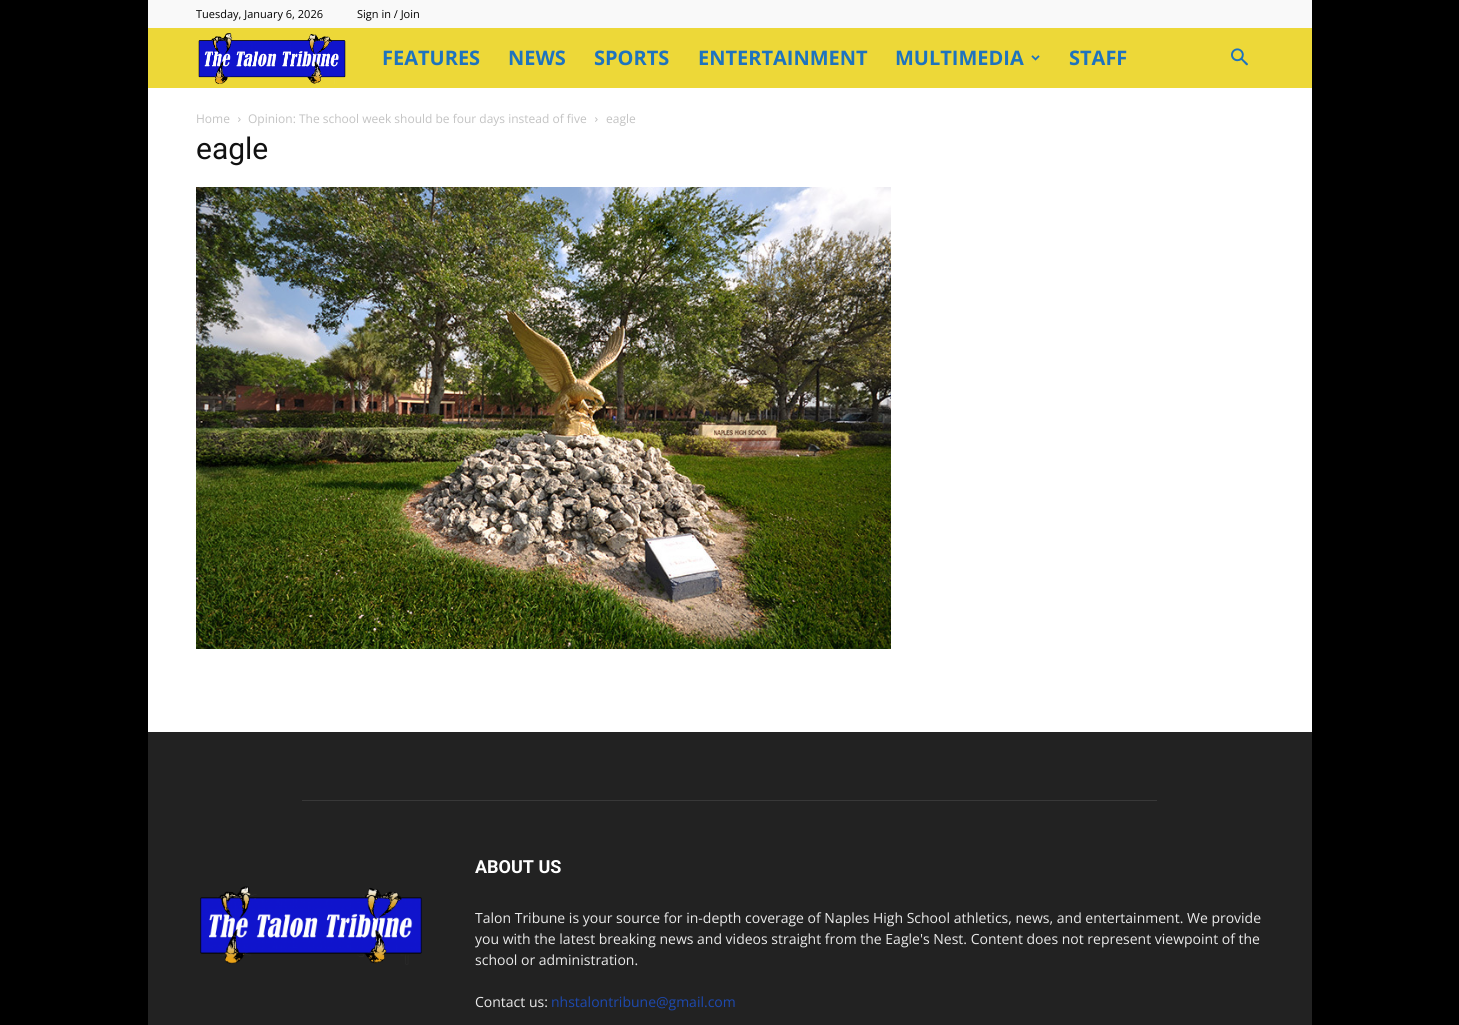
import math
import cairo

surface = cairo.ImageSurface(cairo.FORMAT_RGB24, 1459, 1025)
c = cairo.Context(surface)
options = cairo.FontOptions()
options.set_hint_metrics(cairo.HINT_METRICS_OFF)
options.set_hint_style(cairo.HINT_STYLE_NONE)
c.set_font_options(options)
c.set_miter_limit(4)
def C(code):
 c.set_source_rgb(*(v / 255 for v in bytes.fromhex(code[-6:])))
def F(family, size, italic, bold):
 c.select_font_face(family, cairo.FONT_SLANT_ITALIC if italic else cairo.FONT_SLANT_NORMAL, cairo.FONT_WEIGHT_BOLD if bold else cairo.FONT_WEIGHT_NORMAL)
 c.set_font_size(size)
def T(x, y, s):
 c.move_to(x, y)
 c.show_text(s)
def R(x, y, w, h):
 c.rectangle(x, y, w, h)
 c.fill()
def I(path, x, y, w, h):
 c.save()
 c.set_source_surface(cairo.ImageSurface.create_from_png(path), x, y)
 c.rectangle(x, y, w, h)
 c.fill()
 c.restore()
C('000000')
c.paint()
C('f9f9f9')
R(148,0,1164,28)
F('Open Sans',11,0,0)
C('000000')
T(196,18,'Tuesday, January 6, 2026')
T(357,18,'Sign in / Join')
C('edd838')
R(148,28,1164,60)
I('1.png',198,33,148,51)
F('Open Sans',20,0,1)
C('1e73be')
T(382,65,'FEATURES')
T(508,65,'NEWS')
T(594,65,'SPORTS')
T(698,65,'ENTERTAINMENT')
T(895,65,'MULTIMEDIA')
I('2.png',1031,55,9,6)
T(1069,65,'STAFF')
I('3.png',1231,48,17,18)
C('ffffff')
R(148,88,1164,644)
F('Open Sans',12,0,0)
C('c3c3c3')
T(196,123,'Home')
I('4.png',238,117,3,5)
T(248,123,'Opinion: The school week should be four days instead of five')
I('4.png',595,117,3,5)
T(606,123,'eagle')
F('Roboto',30,0,0)
C('111111')
T(196,159,'eagle')
I('5.png',196,187,695,462)
C('222222')
R(148,732,1164,293)
C('383838')
R(302,800,855,1)
I('6.png',200,886,222,79)
F('Roboto',18,0,1)
C('ffffff')
T(475,873,'ABOUT US')
F('Open Sans',14,0,0)
C('eaeaea')
T(475,923,'Talon Tribune is your source for in-depth coverage of Naples High School athletics, news, and entertainment. We provide')
T(475,944,'you with the latest breaking news and videos straight from the Eagle\'s Nest. Content does not represent viewpoint of the')
T(475,965,'school or administration.')
T(475,1007,'Contact us:')
C('1d49af')
T(551,1007,'nhstalontribune@gmail.com')
surface.write_to_png('o.png')
